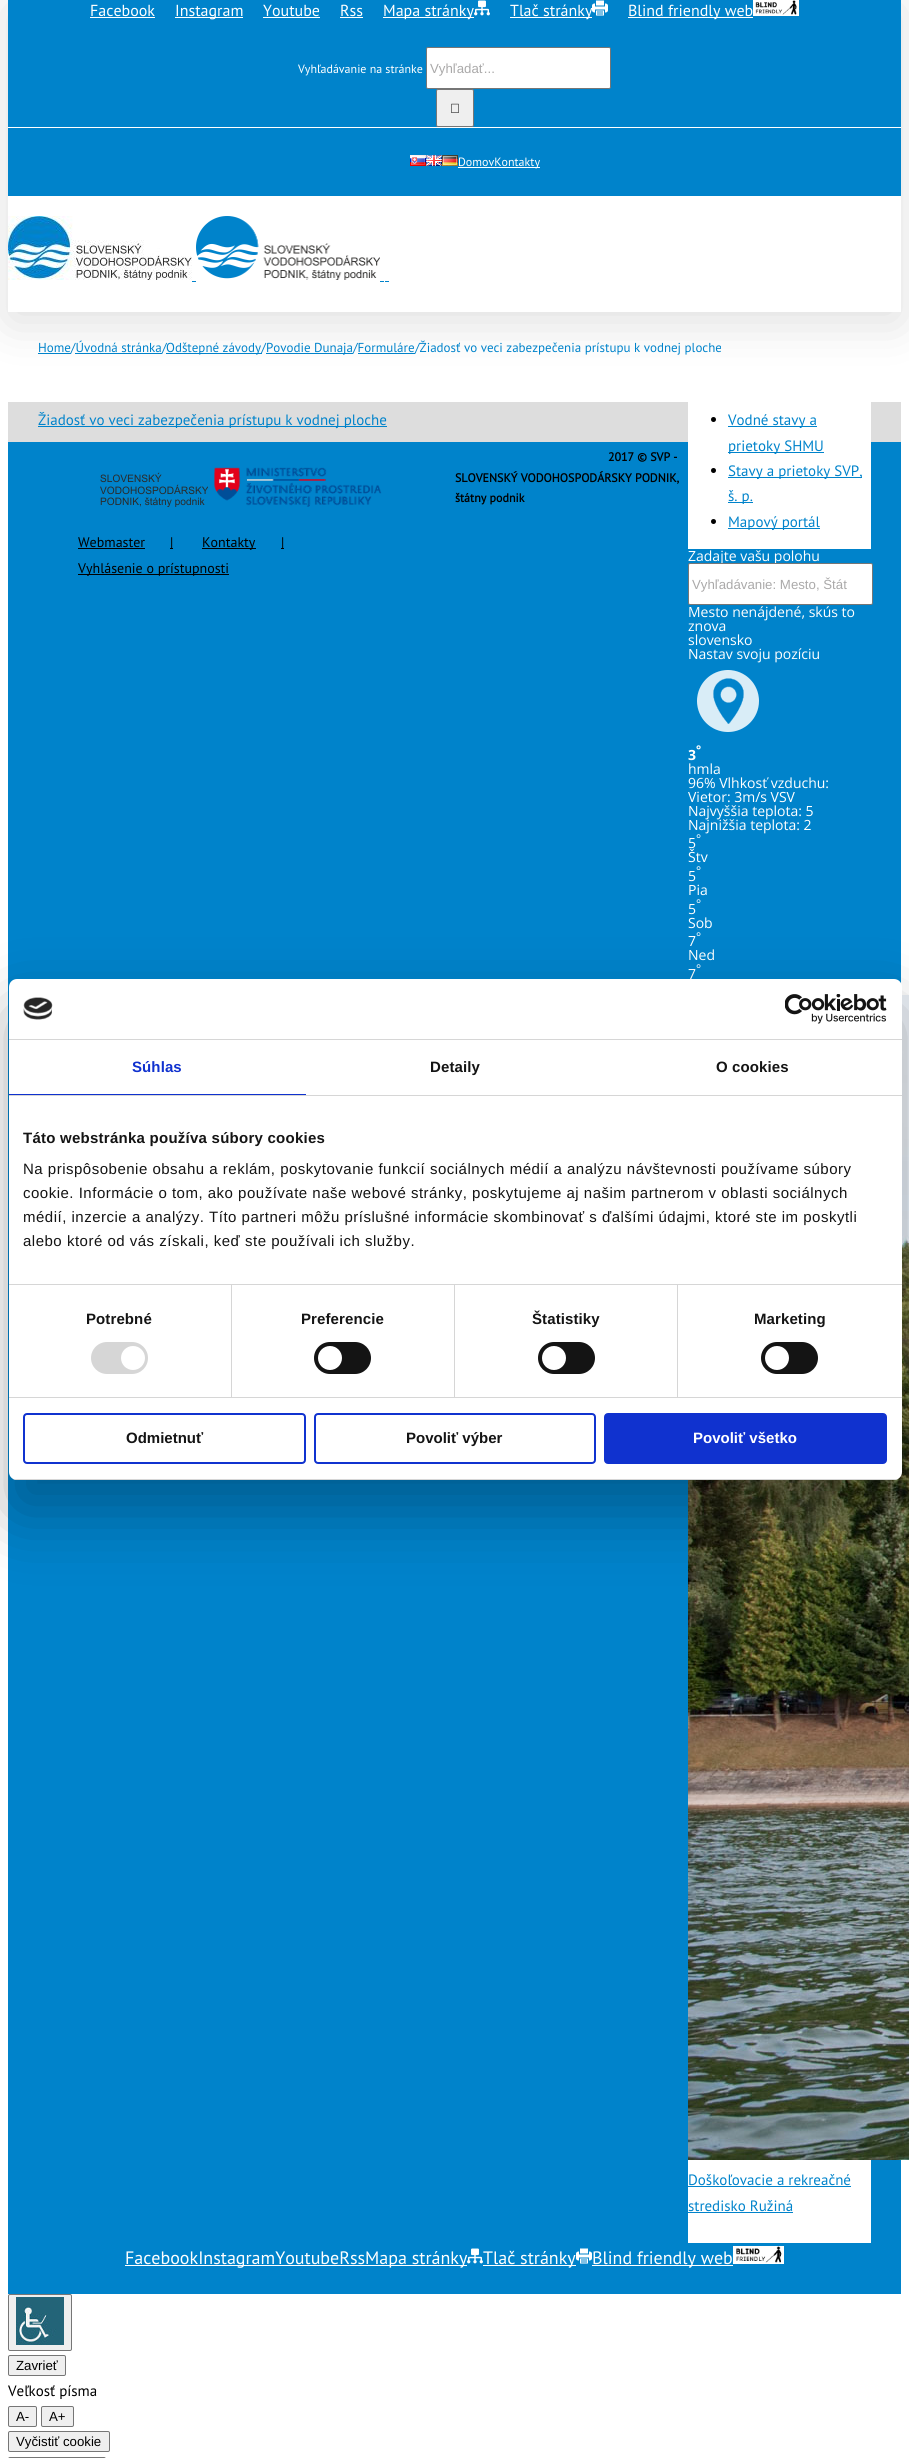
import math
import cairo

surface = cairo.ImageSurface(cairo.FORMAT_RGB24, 909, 2458)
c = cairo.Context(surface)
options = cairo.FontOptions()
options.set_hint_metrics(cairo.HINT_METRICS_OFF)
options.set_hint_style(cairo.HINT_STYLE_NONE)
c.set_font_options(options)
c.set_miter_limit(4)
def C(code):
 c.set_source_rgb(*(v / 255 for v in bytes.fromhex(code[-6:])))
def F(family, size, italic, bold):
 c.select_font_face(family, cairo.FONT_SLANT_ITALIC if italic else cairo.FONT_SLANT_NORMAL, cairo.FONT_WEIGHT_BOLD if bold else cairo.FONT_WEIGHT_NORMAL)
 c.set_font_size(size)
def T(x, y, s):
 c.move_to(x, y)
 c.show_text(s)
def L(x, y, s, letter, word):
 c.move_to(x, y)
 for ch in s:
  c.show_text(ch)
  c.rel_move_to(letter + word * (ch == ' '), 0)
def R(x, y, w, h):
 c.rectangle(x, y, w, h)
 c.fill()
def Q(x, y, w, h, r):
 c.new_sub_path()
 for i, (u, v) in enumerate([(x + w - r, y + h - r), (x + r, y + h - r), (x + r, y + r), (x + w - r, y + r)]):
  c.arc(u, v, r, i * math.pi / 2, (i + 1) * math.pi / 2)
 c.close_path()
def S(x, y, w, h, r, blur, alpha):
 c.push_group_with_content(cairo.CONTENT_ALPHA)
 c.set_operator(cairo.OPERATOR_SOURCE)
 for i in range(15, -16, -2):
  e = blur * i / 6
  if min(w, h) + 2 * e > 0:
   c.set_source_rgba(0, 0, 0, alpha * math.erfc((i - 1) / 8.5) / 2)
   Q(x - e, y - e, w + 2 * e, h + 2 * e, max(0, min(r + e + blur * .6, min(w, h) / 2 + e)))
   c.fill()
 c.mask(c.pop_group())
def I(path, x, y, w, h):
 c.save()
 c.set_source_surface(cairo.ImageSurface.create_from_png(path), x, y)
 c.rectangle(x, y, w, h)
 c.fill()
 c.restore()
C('ffffff')
c.paint()
C('000000')
S(10,9,889,311,0,25,.14)
C('0083cb')
R(8,0,893,196)
C('ffffff')
R(8,127,893,1)
F('PT Sans',16,0,0)
T(90,16,'Facebook')
R(90,17,65,1)
R(175,17,68,1)
T(175,16,'Instagram')
T(263,16,'Youtube')
R(263,17,57,1)
T(340,16,'Rss')
R(340,17,23,1)
R(383,17,91,1)
T(383,16,'Mapa stránky')
I('1.png',474,0,16,16)
R(510,17,82,1)
T(510,16,'Tlač stránky')
I('2.png',592,0,16,16)
R(628,17,125,1)
T(628,16,'Blind friendly web')
I('3.png',753,0,46,16)
F('PT Sans',12,0,0)
T(298,73,'Vyhľadávanie na stránke')
Q(426.5,47.5,184,41,1.5)
c.fill_preserve()
C('767676')
c.set_line_width(1)
c.stroke()
F('Liberation Sans',13.25,0,0)
C('aaa9a9')
T(430,73,'Vyhľadať...')
C('efefef')
Q(436.5,89.5,37,37,1.5)
c.fill_preserve()
C('767676')
c.stroke()
I('4.png',451,103,8,10)
I('5.png',410,155,16,11)
I('6.png',426,155,16,11)
I('7.png',442,155,16,11)
C('ffffff')
R(458,167,82,1)
F('PT Sans',12,0,0)
T(458,166,'DomovKontakty')
R(8,196,893,116)
I('8.png',8,216,184,64)
I('9.png',196,216,184,64)
C('0083cb')
R(192,281,4,1)
R(380,281,4,1)
R(385,281,4,1)
R(38,353,33,1)
F('PT Sans',13,0,0)
T(38,352,'Home/Úvodná stránka')
R(75,353,87,1)
T(162,352,'/')
R(166,353,96,1)
T(166,352,'Odštepné závody/')
R(266,353,87,1)
T(266,352,'Povodie Dunaja/Formuláre')
R(358,353,57,1)
T(415,352,'/Žiadosť vo veci zabezpečenia prístupu k vodnej ploche')
C('dddddd')
R(8,402,893,40)
C('0083cb')
R(38,426,349,1)
F('PT Sans',15,0,0)
T(38,425,'Žiadosť vo veci zabezpečenia prístupu k vodnej ploche')
R(8,442,893,1852)
C('ffffff')
R(688,402,183,1841)
C('000000')
c.new_path()
c.arc(713.5,419.5,2.5,0,2 * math.pi)
c.fill()
C('0083cb')
R(728,426,89,1)
T(728,425,'Vodné stavy a')
R(728,452,96,1)
T(728,451,'prietoky SHMU')
C('000000')
c.new_path()
c.arc(713.5,470.5,2.5,0,2 * math.pi)
c.fill()
C('0083cb')
R(728,477,134,1)
T(728,476,'Stavy a prietoky SVP,')
R(728,502,25,1)
T(728,501,'š. p.')
C('000000')
c.new_path()
c.arc(713.5,521.5,2.5,0,2 * math.pi)
c.fill()
C('0083cb')
R(728,528,92,1)
T(728,527,'Mapový portál')
R(688,549,183,430)
F('Open Sans',14,0,0)
C('ffffff')
T(688,561,'Zadajte vašu polohu')
Q(688.5,563.5,184,41,1.5)
c.fill_preserve()
C('767676')
c.stroke()
F('Liberation Sans',13.25,0,0)
C('aaa9a9')
T(692,589,'Vyhľadávanie: Mesto, Štát')
F('Open Sans',14,0,0)
C('ffffff')
T(688,617,'Mesto nenájdené, skús to')
T(688,631,'znova')
T(688,645,'slovensko')
T(688,659,'Nastav svoju pozíciu')
I('10.png',697,670,62,62)
F('Open Sans',12,0,1)
T(696,754,'°')
F('Open Sans',14,0,1)
T(688,760,'3')
F('Open Sans',14,0,0)
T(688,774,'hmla')
T(688,788,'96% Vlhkosť vzduchu:')
T(688,802,'Vietor: 3m/s VSV')
T(688,816,'Najvyššia teplota: 5')
T(688,830,'Najnižšia teplota: 2')
F('Open Sans',12,0,0)
T(696,843,'°')
F('Open Sans',14,0,0)
T(688,848,'5')
T(688,862,'Štv')
F('Open Sans',12,0,0)
T(696,875,'°')
F('Open Sans',14,0,0)
T(688,881,'5')
T(688,895,'Pia')
F('Open Sans',12,0,0)
T(696,908,'°')
F('Open Sans',14,0,0)
T(688,914,'5')
T(688,928,'Sob')
F('Open Sans',12,0,0)
T(696,941,'°')
F('Open Sans',14,0,0)
T(688,946,'7')
T(688,960,'Ned')
F('Open Sans',12,0,0)
T(696,973,'°')
F('Open Sans',14,0,0)
T(688,979,'7')
I('11.png',688,995,221,1165)
F('PT Sans',15,0,0)
C('0083cb')
T(688,2185,'Doškoľovacie a rekreačné')
R(688,2186,163,1)
T(688,2211,'stredisko Ružiná')
R(688,2212,105,1)
F('PT Sans',12,0,1)
C('000000')
T(608,461,'2017 © SVP -')
T(455,482,'SLOVENSKÝ VODOHOSPODÁRSKY PODNIK,')
T(455,502,'štátny podnik')
C('ffffff')
R(125,2265,342,1)
F('PT Sans',18,0,0)
T(125,2264,'FacebookInstagramYoutubeRssMapa stránky')
I('1.png',467,2248,16,16)
R(483,2265,93,1)
T(483,2264,'Tlač stránky')
I('2.png',576,2248,16,16)
R(592,2265,141,1)
T(592,2264,'Blind friendly web')
I('12.png',733,2246,51,18)
I('13.png',100,472,108,35)
I('14.png',214,467,168,40)
F('PT Sans',14,0,0)
C('000000')
T(78,547,'Webmaster')
R(78,548,67,1)
R(170,548,3,1)
T(170,547,'|')
R(202,548,54,1)
T(202,547,'Kontakty')
R(281,548,3,1)
T(281,547,'|')
R(78,574,151,1)
T(78,573,'Vyhlásenie o prístupnosti')
C('000000')
S(9,1011,893,501,8,34,.3)
C('ffffff')
Q(9,979,893,501,8)
c.fill()
C('d6d6d6')
R(9,1039,893,1)
I('15.png',23,997,30,23)
I('16.png',785,994,102,30)
R(9,1095,893,1)
C('1032cf')
R(9,1094,297,1)
F('Liberation Sans',15,0,1)
L(132,1072,'Súhlas',.1,0)
C('141414')
L(430,1072,'Detaily',.1,0)
L(716,1072,'O cookies',.1,0)
C('d6d6d6')
R(9,1284,893,1)
C('141414')
L(23,1143,'Táto webstránka používa súbory cookies',.25,0)
F('Liberation Sans',15,0,0)
L(23,1174,'Na prispôsobenie obsahu a reklám, poskytovanie funkcií sociálnych médií a analýzu návštevnosti používame súbory',.5,0)
L(23,1198,'cookie. Informácie o tom, ako používate naše webové stránky, poskytujeme aj našim partnerom v oblasti sociálnych',.5,0)
L(23,1222,'médií, inzercie a analýzy. Títo partneri môžu príslušné informácie skombinovať s ďalšími údajmi, ktoré ste im poskytli',.5,0)
L(23,1246,'alebo ktoré od vás získali, keď ste používali ich služby.',.5,0)
C('d6d6d6')
R(9,1397,893,1)
R(231,1285,1,112)
F('Liberation Sans',15,0,1)
C('141414')
L(86,1324,'Potrebné',.1,0)
C('d6d6d6')
Q(91,1342,57,32,16)
c.fill()
C('ffffff')
c.arc(133,1358,12,0,2 * math.pi)
c.fill()
C('d6d6d6')
R(454,1285,1,112)
C('141414')
L(301,1324,'Preferencie',.1,0)
Q(314,1342,57,32,16)
c.fill()
C('ffffff')
c.arc(330,1358,12,0,2 * math.pi)
c.fill()
C('d6d6d6')
R(677,1285,1,112)
C('141414')
L(532,1324,'Štatistiky',.1,0)
Q(538,1342,57,32,16)
c.fill()
C('ffffff')
c.arc(554,1358,12,0,2 * math.pi)
c.fill()
C('141414')
L(754,1324,'Marketing',.1,0)
Q(761,1342,57,32,16)
c.fill()
C('ffffff')
c.arc(777,1358,12,0,2 * math.pi)
c.fill()
c.save()
Q(9,979,893,501,8)
c.clip()
C('d6d6d6')
R(9,1479,893,1)
c.restore()
Q(24,1414,281,49,3)
C('1032cf')
c.set_line_width(2)
c.stroke()
C('141414')
T(126,1443,'Odmietnuť')
Q(315,1414,280,49,3)
C('1032cf')
c.stroke()
C('141414')
T(406,1443,'Povoliť výber')
C('1032cf')
Q(605,1414,281,49,3)
c.fill_preserve()
c.stroke()
C('ffffff')
T(693,1443,'Povoliť všetko')
C('efefef')
Q(8.5,2294.5,63,56,1.5)
c.fill_preserve()
C('767676')
c.set_line_width(1)
c.stroke()
I('17.png',16,2297,48,48)
C('efefef')
Q(8.5,2355.5,57,20,1.5)
c.fill_preserve()
C('767676')
c.stroke()
F('Liberation Sans',13.25,0,0)
C('000000')
T(16,2370,'Zavrieť')
F('PT Sans',15,0,0)
T(8,2396,'Veľkosť písma')
C('efefef')
Q(8.5,2406.5,28,20,1.5)
c.fill_preserve()
C('767676')
c.stroke()
F('Liberation Sans',13.25,0,0)
C('000000')
T(16,2421,'A-')
C('efefef')
Q(41.5,2406.5,32,20,1.5)
c.fill_preserve()
C('767676')
c.stroke()
C('000000')
T(49,2421,'A+')
C('efefef')
Q(8.5,2431.5,101,20,1.5)
c.fill_preserve()
C('767676')
c.stroke()
C('000000')
T(16,2446,'Vyčistiť cookie')
Q(8.5,2457.5,97,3,1.5)
C('767676')
c.stroke()
surface.write_to_png('o.png')
